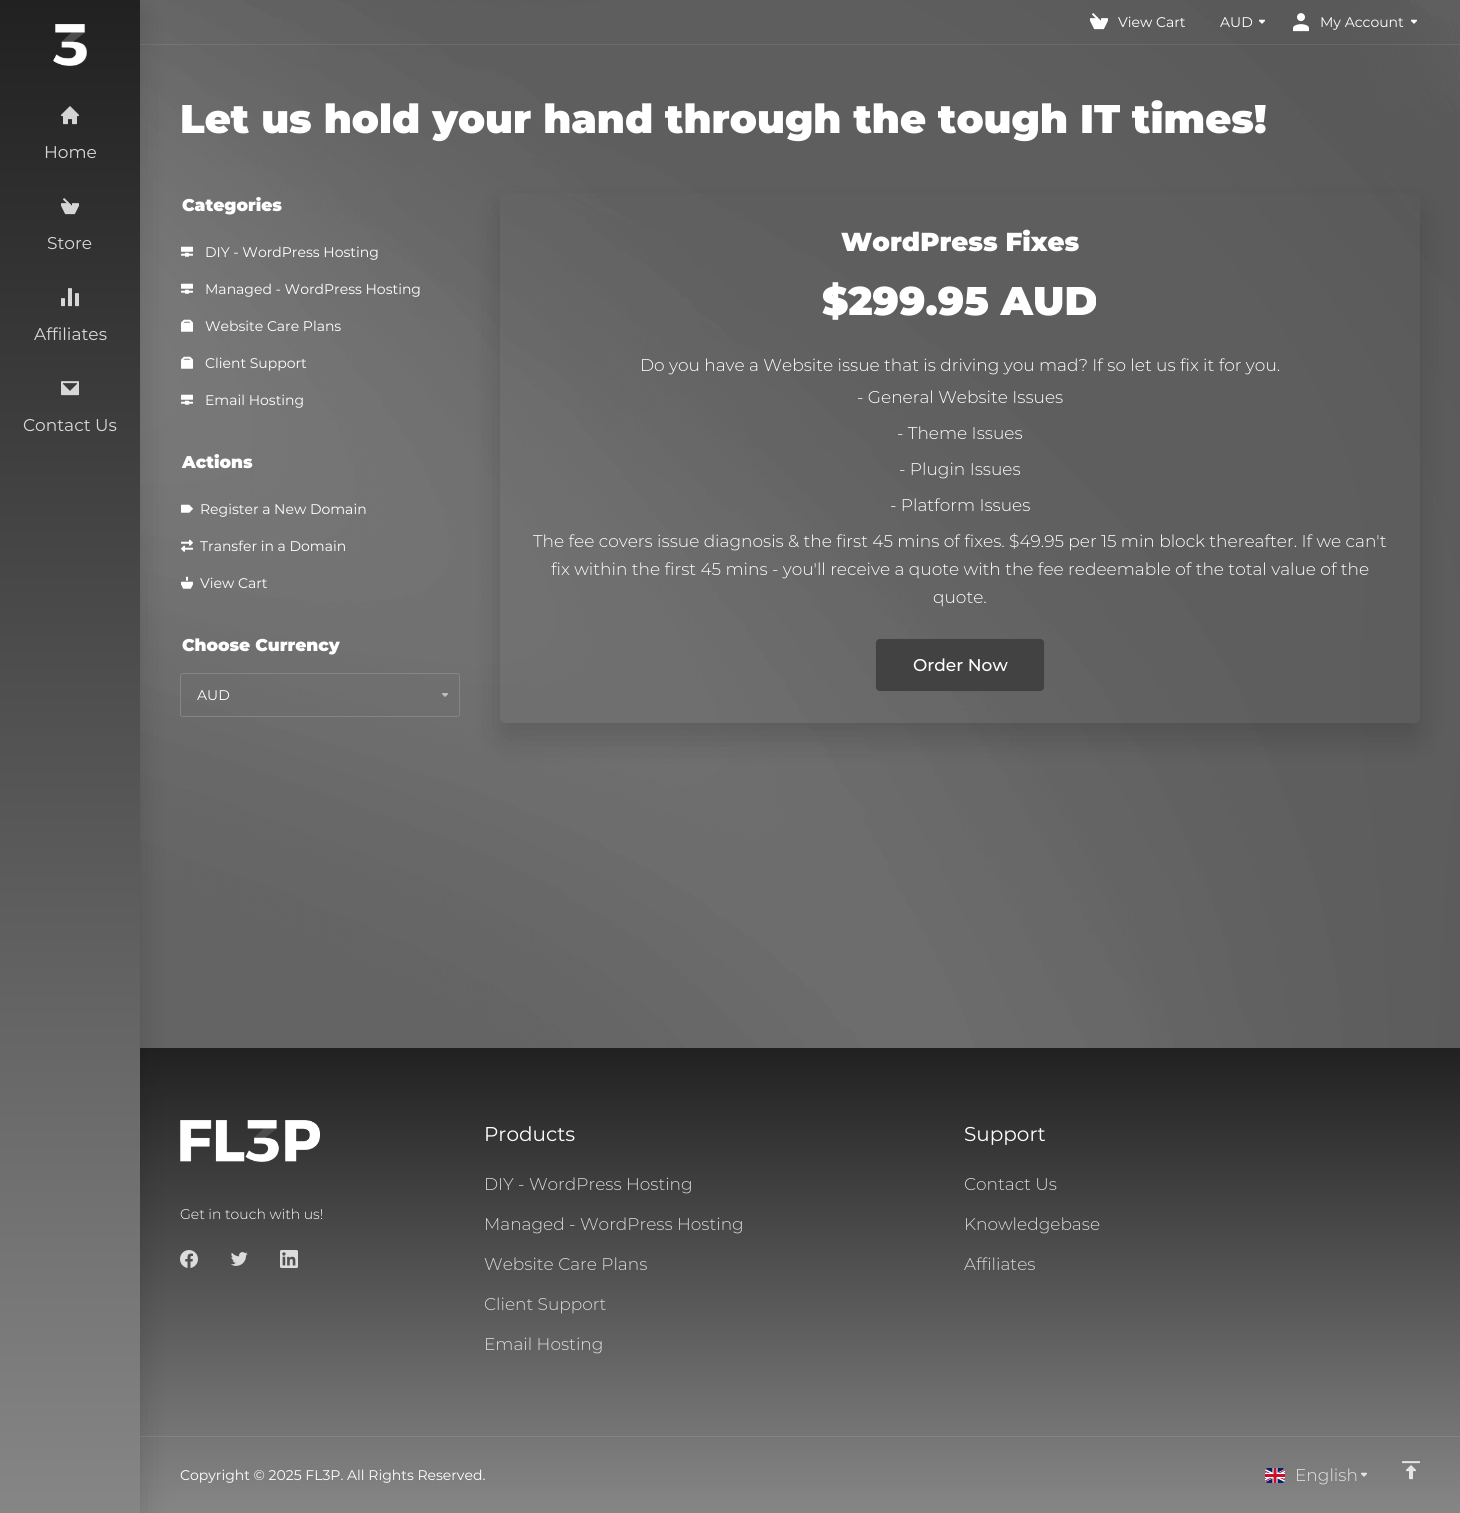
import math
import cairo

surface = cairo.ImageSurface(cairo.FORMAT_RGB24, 1460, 1513)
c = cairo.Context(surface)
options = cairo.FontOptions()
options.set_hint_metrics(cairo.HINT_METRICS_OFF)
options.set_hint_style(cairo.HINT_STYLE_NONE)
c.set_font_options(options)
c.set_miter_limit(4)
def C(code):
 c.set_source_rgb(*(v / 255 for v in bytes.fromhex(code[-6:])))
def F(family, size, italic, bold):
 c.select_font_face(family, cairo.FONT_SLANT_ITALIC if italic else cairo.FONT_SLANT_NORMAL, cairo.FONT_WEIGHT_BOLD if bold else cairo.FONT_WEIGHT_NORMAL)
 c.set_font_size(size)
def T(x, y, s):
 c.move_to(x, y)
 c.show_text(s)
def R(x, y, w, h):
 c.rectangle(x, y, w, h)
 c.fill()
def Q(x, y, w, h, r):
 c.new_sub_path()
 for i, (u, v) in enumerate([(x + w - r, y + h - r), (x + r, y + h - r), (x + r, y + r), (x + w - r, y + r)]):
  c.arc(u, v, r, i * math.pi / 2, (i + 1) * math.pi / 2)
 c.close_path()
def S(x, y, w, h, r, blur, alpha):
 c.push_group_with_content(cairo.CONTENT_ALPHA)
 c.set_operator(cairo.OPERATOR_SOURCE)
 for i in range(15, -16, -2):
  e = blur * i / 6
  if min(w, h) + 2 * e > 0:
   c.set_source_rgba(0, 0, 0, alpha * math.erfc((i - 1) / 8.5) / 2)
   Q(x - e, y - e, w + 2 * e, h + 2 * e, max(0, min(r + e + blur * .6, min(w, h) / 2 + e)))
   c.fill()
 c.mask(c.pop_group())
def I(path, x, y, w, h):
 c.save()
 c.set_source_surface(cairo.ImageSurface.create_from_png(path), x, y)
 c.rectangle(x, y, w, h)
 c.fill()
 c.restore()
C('646464')
c.paint()
I('1.png',140,0,1320,1048)
c.set_source_rgba(0.698,0.8,1,0.12)
R(140,44,1320,1)
I('11.png',181,246,12,11)
I('12.png',181,283,12,11)
I('13.png',181,319,12,13)
I('13.png',181,356,12,13)
I('14.png',181,394,12,11)
I('15.png',181,504,12,9)
I('16.png',181,539,12,13)
I('17.png',181,576,12,13)
I('18.png',442,693,6,4)
Q(180.5,673.5,279,43,2.5)
C('858585')
c.set_line_width(1)
c.stroke()
gradient = cairo.LinearGradient(800,1513,800,1048)
gradient.add_color_stop_rgba(0,0.525,0.525,0.525,1)
gradient.add_color_stop_rgba(1,0.129,0.129,0.129,1)
c.set_source(gradient)
R(140,1048,1320,465)
I('19.png',180,1120,140,42)
I('20.png',180,1250,18,18)
C('838383')
R(140,1436,1320,1)
C('000000')
S(0,16,140,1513,0,16,.16)
gradient = cairo.LinearGradient(70,1513,70,0)
gradient.add_color_stop_rgba(0,0.525,0.525,0.525,1)
gradient.add_color_stop_rgba(1,0.129,0.129,0.129,1)
c.set_source(gradient)
R(0,0,140,1513)
I('2.png',53,24,34,42)
I('3.png',61,106,18,19)
F('Montserrat',17,0,0)
C('d9d9d9')
T(44,158,'Home')
I('4.png',61,198,18,17)
T(47,249,'Store')
I('5.png',61,288,18,19)
T(34,340,'Affiliates')
I('6.png',61,381,18,15)
T(23,431,'Contact Us')
I('7.png',1090,13,18,17)
F('Montserrat',14,0,0)
C('ffffff')
T(1118,27,'View Cart')
T(1220,27,'AUD')
I('8.png',1259,19,6,5)
I('9.png',1293,13,16,19)
T(1320,27,'My Account')
I('10.png',1411,19,6,5)
F('Montserrat Black',40,0,0)
T(180,133,'Let us hold your hand through the tough IT times!')
F('Montserrat Black',17,0,0)
T(182,211,'Categories')
F('Montserrat',14,0,0)
T(205,257,'DIY - WordPress Hosting')
T(205,294,'Managed - WordPress Hosting')
T(205,331,'Website Care Plans')
T(205,368,'Client Support')
T(205,405,'Email Hosting')
F('Montserrat Black',17,0,0)
T(182,468,'Actions')
F('Montserrat',14,0,0)
T(200,514,'Register a New Domain')
T(200,551,'Transfer in a Domain')
T(200,588,'View Cart')
F('Montserrat Black',17,0,0)
T(182,651,'Choose Currency')
F('Montserrat',14,0,0)
T(197,700,'AUD')
c.save()
c.set_fill_rule(cairo.FILL_RULE_EVEN_ODD)
c.new_path()
c.move_to(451,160)
c.line_to(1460,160)
c.line_to(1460,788)
c.line_to(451,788)
c.close_path()
c.move_to(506,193)
c.line_to(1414,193)
c.curve_to(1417.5,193,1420,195.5,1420,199)
c.line_to(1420,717)
c.curve_to(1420,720.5,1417.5,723,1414,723)
c.line_to(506,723)
c.curve_to(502.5,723,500,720.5,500,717)
c.line_to(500,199)
c.curve_to(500,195.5,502.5,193,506,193)
c.close_path()
c.clip()
C('000000')
S(500,209,920,530,6,16,.16)
c.restore()
F('Montserrat Black',26,0,0)
T(841,251,'WordPress Fixes')
F('Montserrat Black',40,0,0)
T(822,315,'$299.95 AUD')
F('Montserrat Light',17,0,0)
T(640,371,'Do you have a Website issue that is driving you mad? If so let us fix it for you.')
T(857,403,'- General Website Issues')
T(897,439,'- Theme Issues')
T(899,475,'- Plugin Issues')
T(890,511,'- Platform Issues')
T(533,547,'The fee covers issue diagnosis & the first 45 mins of fixes. $49.95 per 15 min block thereafter. If we can\'t')
T(551,575,'fix within the first 45 mins - you\'ll receive a quote with the fee redeemable of the total value of the')
T(933,603,'quote.')
C('000000')
S(876,639,168,52,4,.5,.1)
C('424242')
Q(876.5,639.5,167,51,3.5)
c.fill_preserve()
c.stroke()
F('Montserrat Medium',17,0,0)
C('ffffff')
T(913,671,'Order Now')
F('Montserrat Light',14,0,0)
T(180,1219,'Get in touch with us!')
I('21.png',231,1252,17,14)
I('22.png',280,1250,18,18)
F('Montserrat',20,0,0)
T(484,1141,'Products')
F('Montserrat Light',17,0,0)
C('d9d9d9')
T(484,1190,'DIY - WordPress Hosting')
T(484,1230,'Managed - WordPress Hosting')
T(484,1270,'Website Care Plans')
T(484,1310,'Client Support')
C('dfdfdf')
T(484,1350,'Email Hosting')
F('Montserrat',20,0,0)
C('ffffff')
T(964,1141,'Support')
F('Montserrat Light',17,0,0)
C('d9d9d9')
T(964,1190,'Contact Us')
T(964,1230,'Knowledgebase')
T(964,1270,'Affiliates')
F('Montserrat',14,0,0)
C('ffffff')
T(180,1480,'Copyright © 2025 FL3P. All Rights Reserved.')
I('23.png',1265,1468,20,15)
F('Montserrat Light',17,0,0)
C('e5e5e5')
T(1295,1481,'English')
I('24.png',1361,1472,6,5)
I('25.png',1402,1461,18,19)
surface.write_to_png('o.png')
